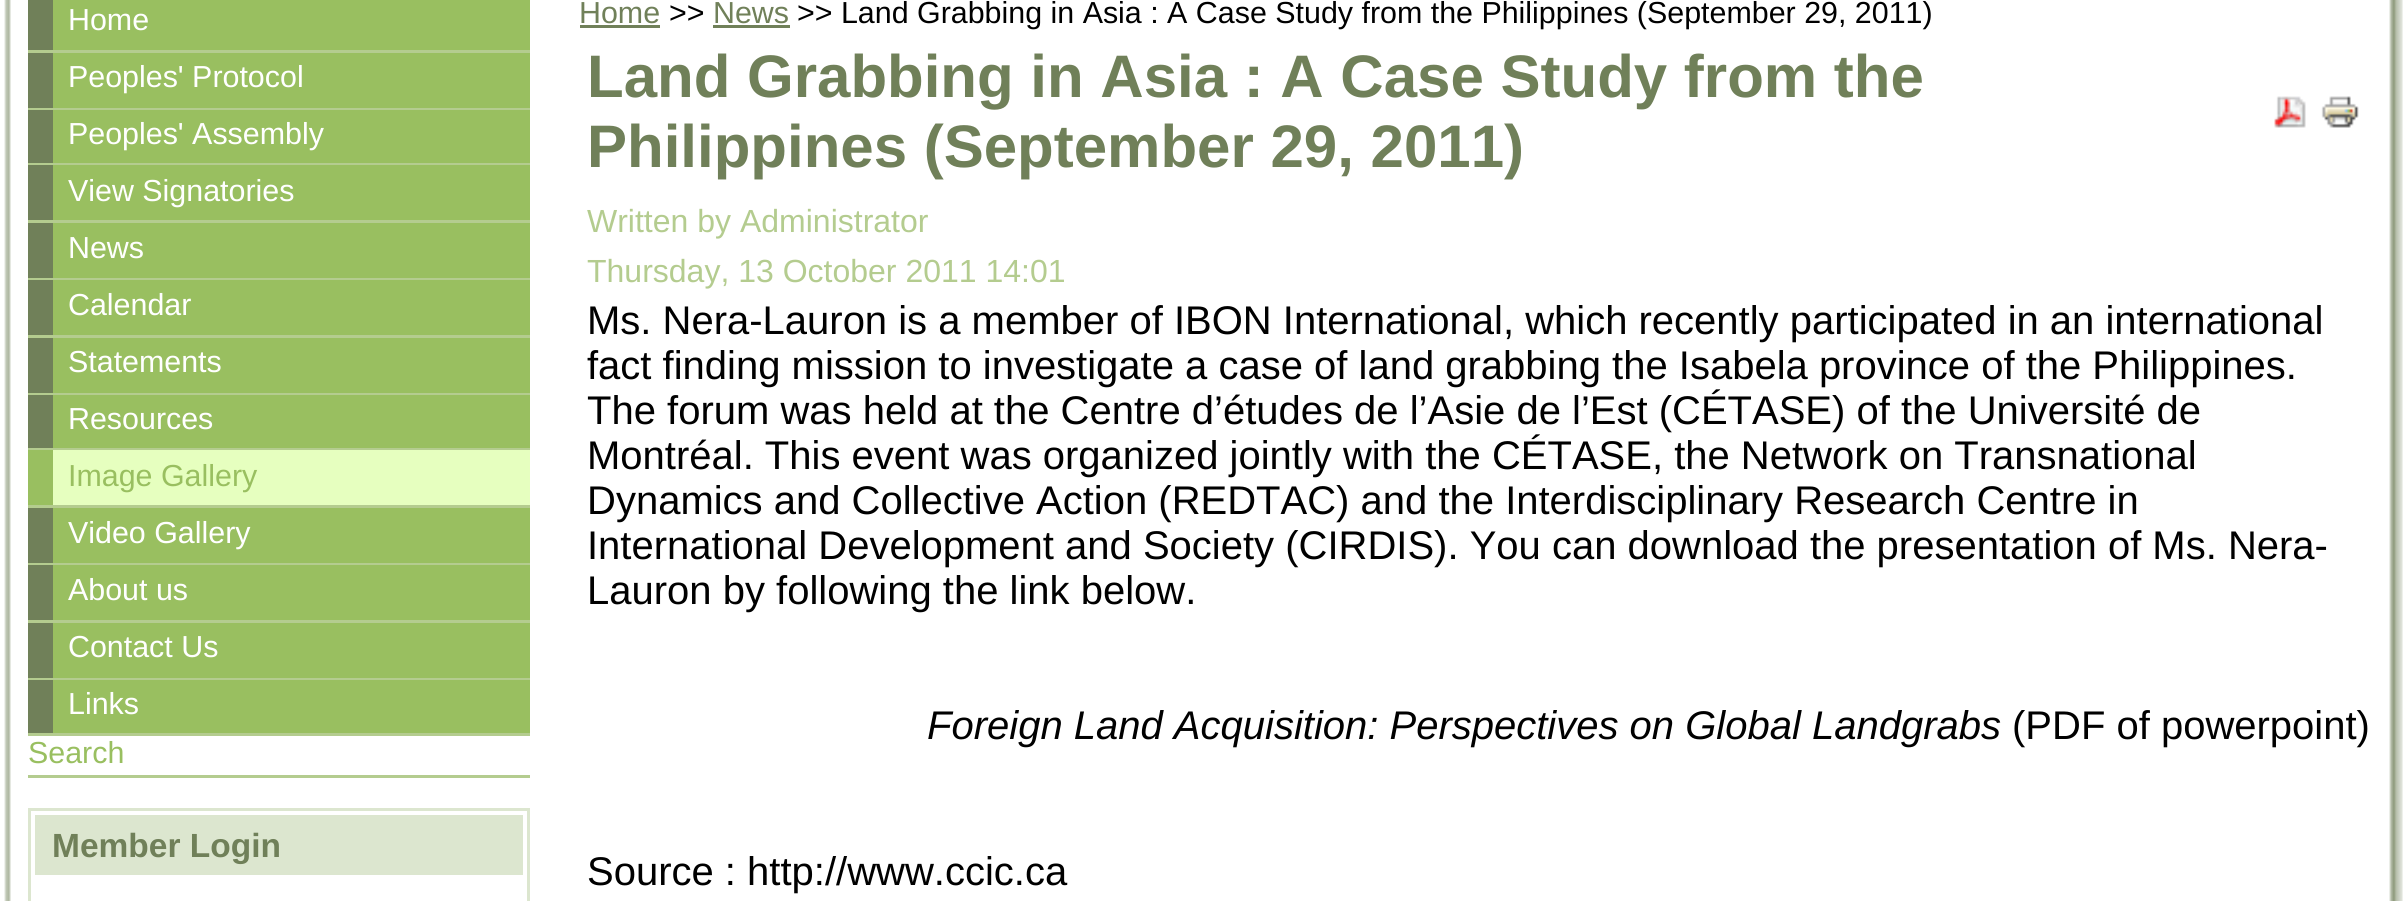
import math
import cairo

surface = cairo.ImageSurface(cairo.FORMAT_RGB24, 2403, 901)
c = cairo.Context(surface)
options = cairo.FontOptions()
options.set_hint_metrics(cairo.HINT_METRICS_OFF)
options.set_hint_style(cairo.HINT_STYLE_NONE)
c.set_font_options(options)
c.set_miter_limit(4)
def C(code):
 c.set_source_rgb(*(v / 255 for v in bytes.fromhex(code[-6:])))
def F(family, size, italic, bold):
 c.select_font_face(family, cairo.FONT_SLANT_ITALIC if italic else cairo.FONT_SLANT_NORMAL, cairo.FONT_WEIGHT_BOLD if bold else cairo.FONT_WEIGHT_NORMAL)
 c.set_font_size(size)
def T(x, y, s):
 c.move_to(x, y)
 c.show_text(s)
def R(x, y, w, h):
 c.rectangle(x, y, w, h)
 c.fill()
def I(path, x, y, w, h):
 c.save()
 c.set_source_surface(cairo.ImageSurface.create_from_png(path), x, y)
 c.rectangle(x, y, w, h)
 c.fill()
 c.restore()
C('ffffff')
c.paint()
I('1.png',4,0,2399,901)
C('b4cc8f')
R(28,50,502,3)
C('99bf60')
R(53,0,477,50)
C('708059')
R(28,0,25,50)
F('Liberation Sans',30.4,0,0)
C('ffffff')
T(68,30,'Home')
C('b4cc8f')
R(28,108,502,2)
C('99bf60')
R(53,53,477,55)
C('708059')
R(28,53,25,55)
C('ffffff')
T(68,87,'Peoples\' Protocol')
C('b4cc8f')
R(28,163,502,2)
C('99bf60')
R(53,110,477,53)
C('708059')
R(28,110,25,53)
C('ffffff')
T(68,144,'Peoples\' Assembly')
C('b4cc8f')
R(28,220,502,3)
C('99bf60')
R(53,165,477,55)
C('708059')
R(28,165,25,55)
C('ffffff')
T(68,201,'View Signatories')
C('b4cc8f')
R(28,278,502,2)
C('99bf60')
R(53,223,477,55)
C('708059')
R(28,223,25,55)
C('ffffff')
T(68,258,'News')
C('b4cc8f')
R(28,335,502,3)
C('99bf60')
R(53,280,477,55)
C('708059')
R(28,280,25,55)
C('ffffff')
T(68,315,'Calendar')
C('b4cc8f')
R(28,393,502,2)
C('99bf60')
R(53,338,477,55)
C('708059')
R(28,338,25,55)
C('ffffff')
T(68,372,'Statements')
C('b4cc8f')
R(28,448,502,2)
C('99bf60')
R(53,395,477,53)
C('708059')
R(28,395,25,53)
C('ffffff')
T(68,429,'Resources')
C('b4cc8f')
R(28,505,502,3)
C('e6ffbf')
R(53,450,477,55)
C('99bf60')
R(28,450,25,55)
T(68,486,'Image Gallery')
C('b4cc8f')
R(28,563,502,2)
C('99bf60')
R(53,508,477,55)
C('708059')
R(28,508,25,55)
C('ffffff')
T(68,543,'Video Gallery')
C('b4cc8f')
R(28,620,502,3)
C('99bf60')
R(53,565,477,55)
C('708059')
R(28,565,25,55)
C('ffffff')
T(68,600,'About us')
C('b4cc8f')
R(28,678,502,2)
C('99bf60')
R(53,623,477,55)
C('708059')
R(28,623,25,55)
C('ffffff')
T(68,657,'Contact Us')
C('b4cc8f')
R(28,733,502,3)
C('99bf60')
R(53,680,477,53)
C('708059')
R(28,680,25,53)
C('ffffff')
T(68,714,'Links')
C('b4cc8f')
R(28,775,502,3)
C('99bf60')
T(28,763,'Search')
c.rectangle(29.5,809.5,499,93)
C('dce6cf')
c.set_line_width(3)
c.stroke()
R(35,815,488,60)
F('Liberation Sans',33.5,0,1)
C('708059')
T(52,857,'Member Login')
F('Liberation Sans',30.4,0,0)
T(579,23,'Home')
R(580,25,80,3)
C('000000')
T(669,23,'>>')
C('708059')
T(713,23,'News')
R(713,25,77,3)
C('000000')
T(797,23,'>> Land Grabbing in Asia : A Case Study from the Philippines (September 29, 2011)')
F('Liberation Sans',60,0,1)
C('708059')
T(587,97,'Land Grabbing in Asia : A Case Study from the')
T(587,167,'Philippines (September 29, 2011)')
I('2.png',2274,96,32,32)
I('3.png',2321,96,38,32)
F('Liberation Sans',32,0,0)
C('b4cc8f')
T(587,232,'Written by Administrator')
T(587,282,'Thursday, 13 October 2011 14:01')
F('Liberation Sans',40,0,0)
C('000000')
T(587,334,'Ms. Nera-Lauron is a member of IBON International, which recently participated in an international')
T(587,379,'fact finding mission to investigate a case of land grabbing the Isabela province of the Philippines.')
T(587,424,'The forum was held at the Centre d’études de l’Asie de l’Est (CÉTASE) of the Université de')
T(587,469,'Montréal. This event was organized jointly with the CÉTASE, the Network on Transnational')
T(587,514,'Dynamics and Collective Action (REDTAC) and the Interdisciplinary Research Centre in')
T(587,559,'International Development and Society (CIRDIS). You can download the presentation of Ms. Nera-')
T(587,604,'Lauron by following the link below.')
F('Liberation Sans',40,1,0)
T(927,739,'Foreign Land Acquisition: Perspectives on Global Landgrabs')
F('Liberation Sans',40,0,0)
T(2012,739,'(PDF of powerpoint)')
T(587,885,'Source : http://www.ccic.ca')
surface.write_to_png('o.png')
